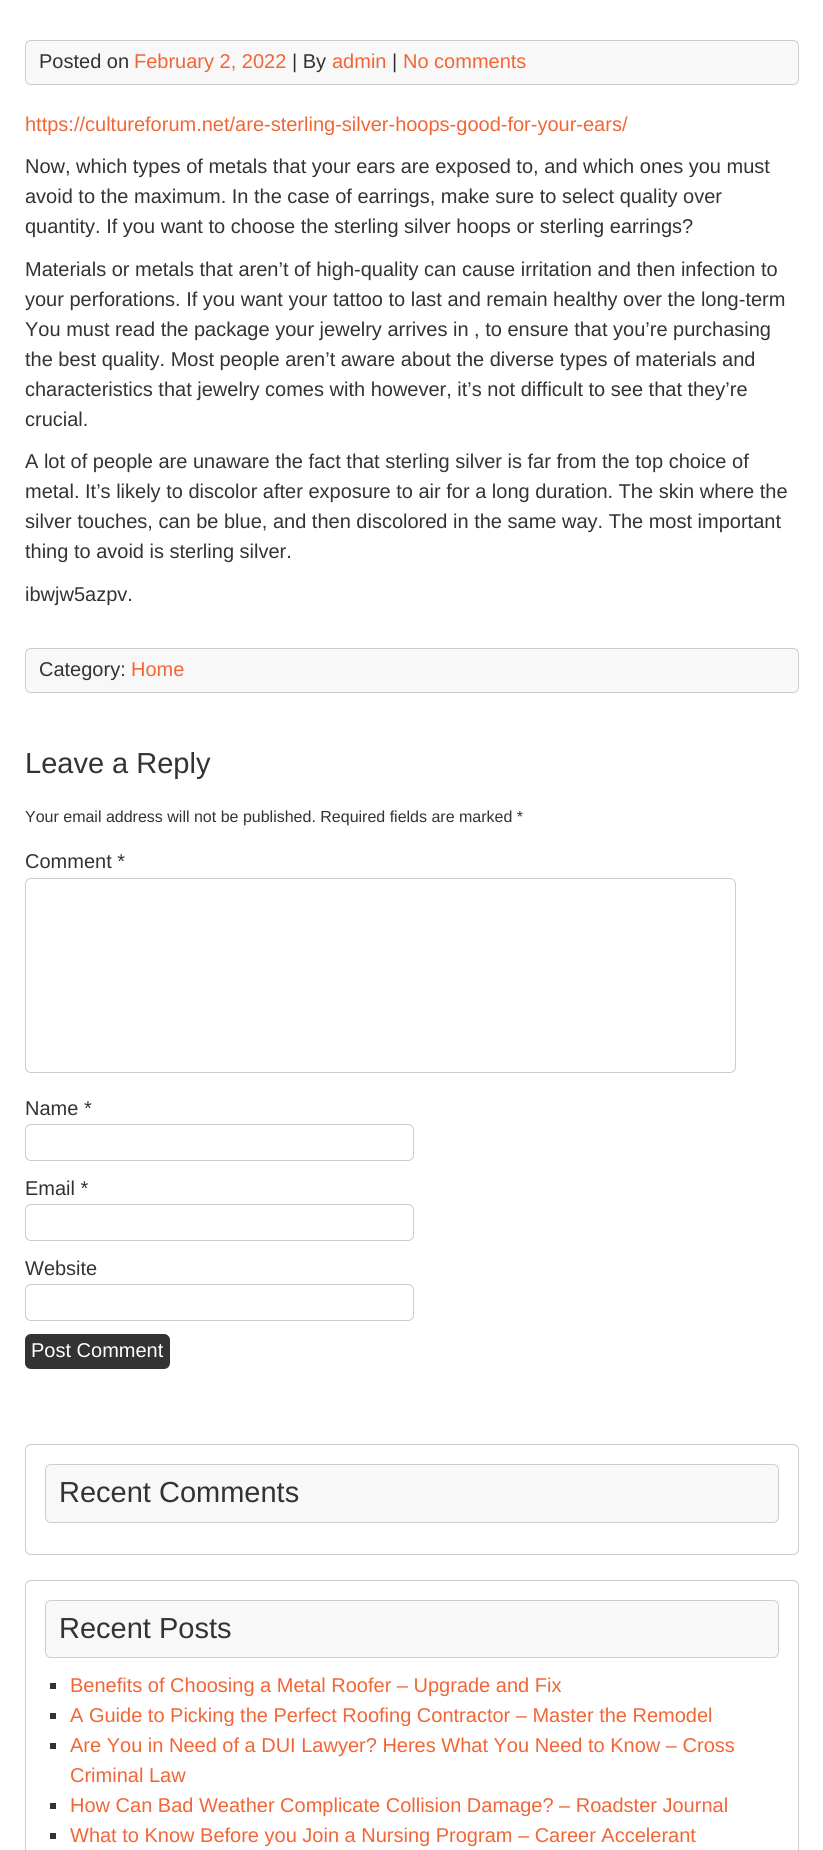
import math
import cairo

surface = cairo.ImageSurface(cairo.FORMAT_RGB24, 823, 1850)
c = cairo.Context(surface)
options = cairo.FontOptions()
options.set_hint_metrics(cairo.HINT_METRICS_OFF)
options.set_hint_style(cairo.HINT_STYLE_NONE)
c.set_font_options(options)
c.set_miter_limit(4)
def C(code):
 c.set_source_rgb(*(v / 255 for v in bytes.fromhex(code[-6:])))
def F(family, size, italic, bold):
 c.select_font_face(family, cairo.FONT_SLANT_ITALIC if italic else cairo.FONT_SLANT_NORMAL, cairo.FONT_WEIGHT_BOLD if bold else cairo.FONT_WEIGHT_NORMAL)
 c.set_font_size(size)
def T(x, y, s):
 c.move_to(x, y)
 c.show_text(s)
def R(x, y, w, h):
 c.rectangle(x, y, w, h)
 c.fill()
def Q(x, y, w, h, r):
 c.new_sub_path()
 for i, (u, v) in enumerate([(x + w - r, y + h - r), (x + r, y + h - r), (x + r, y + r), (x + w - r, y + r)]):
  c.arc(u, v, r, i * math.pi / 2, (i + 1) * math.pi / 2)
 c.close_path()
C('ffffff')
c.paint()
C('f8f8f8')
Q(25.5,40.5,773,44,5.5)
c.fill_preserve()
C('cccccc')
c.set_line_width(1)
c.stroke()
F('Liberation Sans',20,0,0)
C('333333')
T(39,68,'Posted on')
C('f26535')
T(134,68,'February 2, 2022')
C('333333')
T(292,68,'| By')
C('f26535')
T(332,68,'admin')
C('333333')
T(392,68,'|')
C('f26535')
T(403,68,'No comments')
T(25,131,'https://cultureforum.net/are-sterling-silver-hoops-good-for-your-ears/')
C('333333')
T(25,173,'Now, which types of metals that your ears are exposed to, and which ones you must')
T(25,203,'avoid to the maximum. In the case of earrings, make sure to select quality over')
T(25,233,'quantity. If you want to choose the sterling silver hoops or sterling earrings?')
T(25,276,'Materials or metals that aren’t of high-quality can cause irritation and then infection to')
T(25,306,'your perforations. If you want your tattoo to last and remain healthy over the long-term')
T(25,336,'You must read the package your jewelry arrives in , to ensure that you’re purchasing')
T(25,366,'the best quality. Most people aren’t aware about the diverse types of materials and')
T(25,396,'characteristics that jewelry comes with however, it’s not difficult to see that they’re')
T(25,426,'crucial.')
T(25,468,'A lot of people are unaware the fact that sterling silver is far from the top choice of')
T(25,498,'metal. It’s likely to discolor after exposure to air for a long duration. The skin where the')
T(25,528,'silver touches, can be blue, and then discolored in the same way. The most important')
T(25,558,'thing to avoid is sterling silver.')
T(25,601,'ibwjw5azpv.')
C('f8f8f8')
Q(25.5,648.5,773,44,5.5)
c.fill_preserve()
C('cccccc')
c.stroke()
C('333333')
T(39,676,'Category:')
C('f26535')
T(131,676,'Home')
F('Liberation Sans',29,0,0)
C('333333')
T(25,773,'Leave a Reply')
F('Liberation Sans',16,0,0)
T(25,822,'Your email address will not be published. Required fields are marked *')
F('Liberation Sans',20,0,0)
T(25,868,'Comment *')
Q(25.5,878.5,710,194,5.5)
C('cccccc')
c.stroke()
C('333333')
T(25,1115,'Name *')
Q(25.5,1124.5,388,36,5.5)
C('cccccc')
c.stroke()
C('333333')
T(25,1195,'Email *')
Q(25.5,1204.5,388,36,5.5)
C('cccccc')
c.stroke()
C('333333')
T(25,1275,'Website')
Q(25.5,1284.5,388,36,5.5)
C('cccccc')
c.stroke()
C('333333')
Q(25,1334,145,35,6)
c.fill()
C('ffffff')
T(31,1357,'Post Comment')
Q(25.5,1444.5,773,110,5.5)
C('cccccc')
c.stroke()
C('f8f8f8')
Q(45.5,1464.5,733,58,5.5)
c.fill_preserve()
C('cccccc')
c.stroke()
F('Liberation Sans',29,0,0)
C('333333')
T(59,1502,'Recent Comments')
Q(25.5,1580.5,773,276,5.5)
C('cccccc')
c.stroke()
C('f8f8f8')
Q(45.5,1600.5,733,57,5.5)
c.fill_preserve()
C('cccccc')
c.stroke()
C('333333')
T(59,1638,'Recent Posts')
R(50,1683,6,6)
F('Liberation Sans',20,0,0)
C('f26535')
T(70,1692,'Benefits of Choosing a Metal Roofer – Upgrade and Fix')
C('333333')
R(50,1713,6,6)
C('f26535')
T(70,1722,'A Guide to Picking the Perfect Roofing Contractor – Master the Remodel')
C('333333')
R(50,1743,6,6)
C('f26535')
T(70,1752,'Are You in Need of a DUI Lawyer? Heres What You Need to Know – Cross')
T(70,1782,'Criminal Law')
C('333333')
R(50,1803,6,6)
C('f26535')
T(70,1812,'How Can Bad Weather Complicate Collision Damage? – Roadster Journal')
C('333333')
R(50,1833,6,6)
C('f26535')
T(70,1842,'What to Know Before you Join a Nursing Program – Career Accelerant')
surface.write_to_png('o.png')
